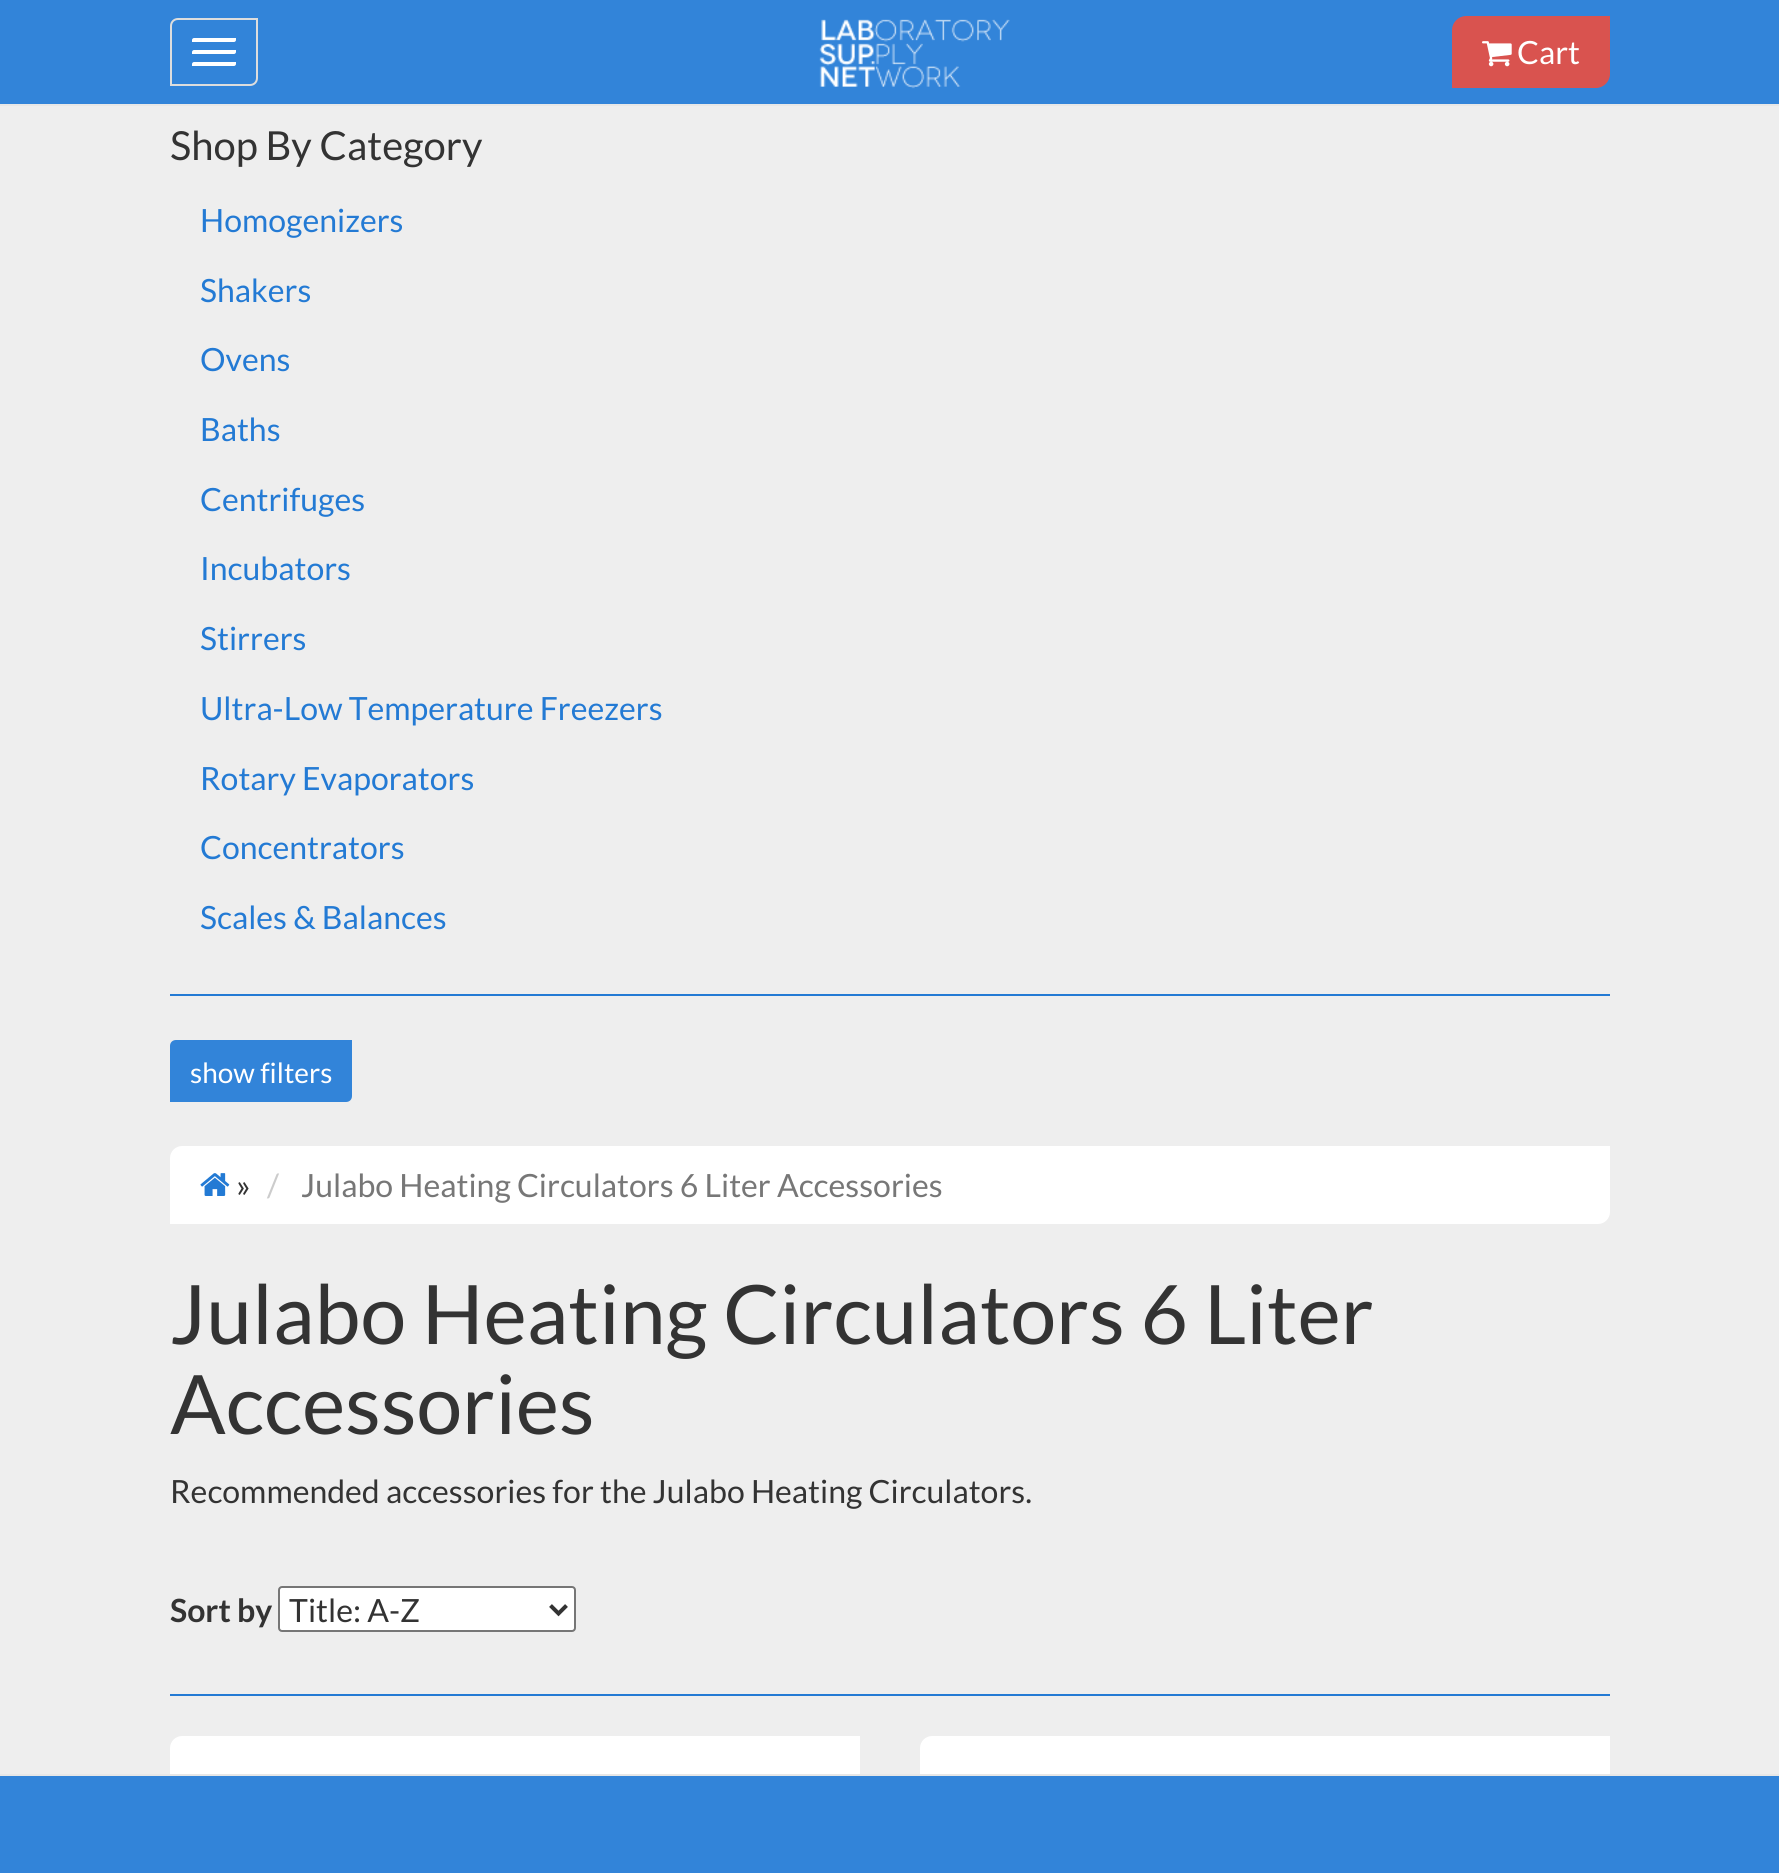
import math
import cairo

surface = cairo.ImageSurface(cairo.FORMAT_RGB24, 1779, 1873)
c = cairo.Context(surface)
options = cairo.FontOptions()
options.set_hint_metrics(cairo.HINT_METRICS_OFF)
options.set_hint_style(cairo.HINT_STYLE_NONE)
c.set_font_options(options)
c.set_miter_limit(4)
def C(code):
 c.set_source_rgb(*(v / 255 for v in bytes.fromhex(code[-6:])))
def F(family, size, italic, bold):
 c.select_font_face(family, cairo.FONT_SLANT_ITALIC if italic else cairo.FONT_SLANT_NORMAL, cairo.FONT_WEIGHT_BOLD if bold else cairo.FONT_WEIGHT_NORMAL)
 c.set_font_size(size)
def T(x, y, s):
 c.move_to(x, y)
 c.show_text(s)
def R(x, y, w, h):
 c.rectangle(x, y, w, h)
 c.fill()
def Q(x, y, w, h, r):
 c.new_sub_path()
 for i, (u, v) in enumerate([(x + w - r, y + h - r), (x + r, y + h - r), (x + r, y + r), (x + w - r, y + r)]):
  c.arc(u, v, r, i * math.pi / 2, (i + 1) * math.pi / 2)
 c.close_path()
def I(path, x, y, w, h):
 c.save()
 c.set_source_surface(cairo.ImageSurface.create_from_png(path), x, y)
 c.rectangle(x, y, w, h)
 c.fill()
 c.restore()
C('eeeeee')
c.paint()
C('3284d9')
R(0,0,1779,104)
C('e7e7e7')
R(0,104,1779,2)
c.new_path()
c.move_to(178,19)
c.line_to(257,19)
c.line_to(257,78)
c.curve_to(257,82,254,85,250,85)
c.line_to(171,85)
c.line_to(171,26)
c.curve_to(171,22,174,19,178,19)
c.close_path()
C('dddddd')
c.stroke()
C('ffffff')
c.new_path()
c.move_to(194,38)
c.line_to(236,38)
c.line_to(236,40)
c.curve_to(236,41,235,42,234,42)
c.line_to(192,42)
c.line_to(192,40)
c.curve_to(192,39,193,38,194,38)
c.close_path()
c.fill()
c.new_path()
c.move_to(194,50)
c.line_to(236,50)
c.line_to(236,52)
c.curve_to(236,53,235,54,234,54)
c.line_to(192,54)
c.line_to(192,52)
c.curve_to(192,51,193,50,194,50)
c.close_path()
c.fill()
c.new_path()
c.move_to(194,62)
c.line_to(236,62)
c.line_to(236,64)
c.curve_to(236,65,235,66,234,66)
c.line_to(192,66)
c.line_to(192,64)
c.curve_to(192,63,193,62,194,62)
c.close_path()
c.fill()
I('1.png',819,19,191,70)
C('d9534f')
c.new_path()
c.move_to(1466,16)
c.line_to(1610,16)
c.line_to(1610,74)
c.curve_to(1610,81.5,1603.5,88,1596,88)
c.line_to(1452,88)
c.line_to(1452,30)
c.curve_to(1452,22.5,1458.5,16,1466,16)
c.close_path()
c.fill()
I('2.png',1482,41,30,26)
F('Lato',32,0,0)
C('ffffff')
T(1517,64,'Cart')
F('Lato',40,0,0)
C('333333')
T(170,160,'Shop By Category')
F('Lato',32,0,0)
C('237ad4')
T(200,232,'Homogenizers')
T(200,302,'Shakers')
T(200,371,'Ovens')
T(200,441,'Baths')
T(200,511,'Centrifuges')
T(200,580,'Incubators')
T(200,650,'Stirrers')
T(200,720,'Ultra-Low Temperature Freezers')
T(200,790,'Rotary Evaporators')
T(200,859,'Concentrators')
T(200,929,'Scales & Balances')
R(170,994,1440,2)
C('3284d9')
c.new_path()
c.move_to(176,1040)
c.line_to(352,1040)
c.line_to(352,1096)
c.curve_to(352,1099.5,349.5,1102,346,1102)
c.line_to(170,1102)
c.line_to(170,1046)
c.curve_to(170,1042.5,172.5,1040,176,1040)
c.close_path()
c.fill()
F('Lato',28,0,0)
C('ffffff')
T(190,1083,'show filters')
c.new_path()
c.move_to(182,1146)
c.line_to(1610,1146)
c.line_to(1610,1212)
c.curve_to(1610,1218.5,1604.5,1224,1598,1224)
c.line_to(170,1224)
c.line_to(170,1158)
c.curve_to(170,1151.5,175.5,1146,182,1146)
c.close_path()
c.fill()
I('3.png',200,1173,30,23)
F('Lato',32,0,0)
C('333333')
T(236,1197,'»')
C('cccccc')
T(267,1197,'/')
C('777777')
T(301,1197,'Julabo Heating Circulators 6 Liter Accessories')
F('Lato',82,0,0)
C('333333')
T(170,1344,'Julabo Heating Circulators 6 Liter')
T(170,1434,'Accessories')
F('Lato',32,0,0)
T(170,1503,'Recommended accessories for the Julabo Heating Circulators.')
F('Lato',32,0,1)
T(170,1622,'Sort by')
C('ffffff')
Q(279,1587,296,44,3)
c.fill_preserve()
C('767676')
c.stroke()
c.new_path()
c.move_to(550.5,1605.5)
c.line_to(558.5,1613.5)
c.line_to(566.5,1605.5)
C('333333')
c.set_line_width(4)
c.stroke()
F('Lato',32,0,0)
T(289,1622,'Title: A-Z')
C('237ad4')
R(170,1694,1440,2)
C('ffffff')
c.new_path()
c.move_to(182,1736)
c.line_to(860,1736)
c.line_to(860,1873)
c.curve_to(860,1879.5,854.5,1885,848,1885)
c.line_to(170,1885)
c.line_to(170,1748)
c.curve_to(170,1741.5,175.5,1736,182,1736)
c.close_path()
c.fill()
c.new_path()
c.move_to(932,1736)
c.line_to(1610,1736)
c.line_to(1610,1873)
c.curve_to(1610,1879.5,1604.5,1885,1598,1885)
c.line_to(920,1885)
c.line_to(920,1748)
c.curve_to(920,1741.5,925.5,1736,932,1736)
c.close_path()
c.fill()
C('3284d9')
R(0,1776,1779,97)
C('e7e7e7')
R(0,1774,1779,2)
surface.write_to_png('o.png')
